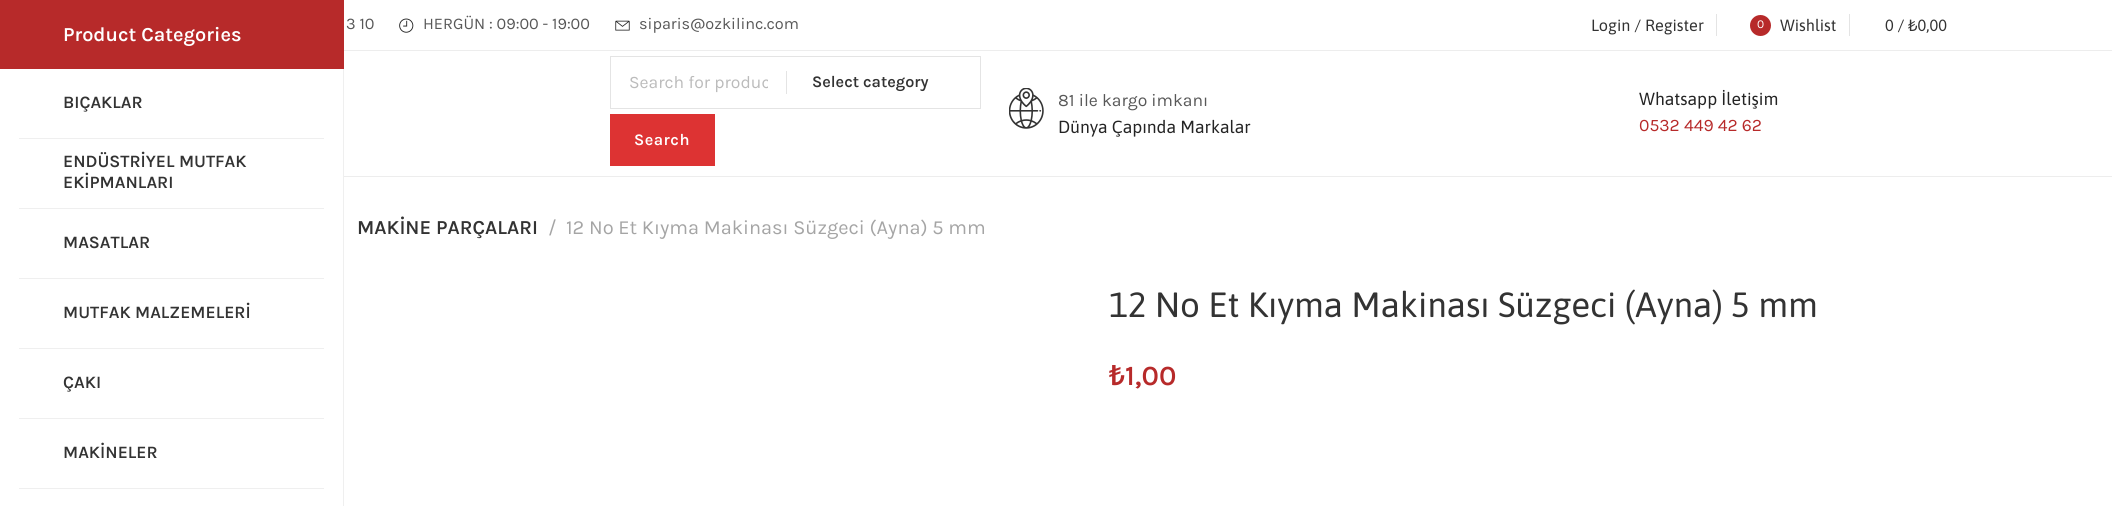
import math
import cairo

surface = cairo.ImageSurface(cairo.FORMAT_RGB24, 2112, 506)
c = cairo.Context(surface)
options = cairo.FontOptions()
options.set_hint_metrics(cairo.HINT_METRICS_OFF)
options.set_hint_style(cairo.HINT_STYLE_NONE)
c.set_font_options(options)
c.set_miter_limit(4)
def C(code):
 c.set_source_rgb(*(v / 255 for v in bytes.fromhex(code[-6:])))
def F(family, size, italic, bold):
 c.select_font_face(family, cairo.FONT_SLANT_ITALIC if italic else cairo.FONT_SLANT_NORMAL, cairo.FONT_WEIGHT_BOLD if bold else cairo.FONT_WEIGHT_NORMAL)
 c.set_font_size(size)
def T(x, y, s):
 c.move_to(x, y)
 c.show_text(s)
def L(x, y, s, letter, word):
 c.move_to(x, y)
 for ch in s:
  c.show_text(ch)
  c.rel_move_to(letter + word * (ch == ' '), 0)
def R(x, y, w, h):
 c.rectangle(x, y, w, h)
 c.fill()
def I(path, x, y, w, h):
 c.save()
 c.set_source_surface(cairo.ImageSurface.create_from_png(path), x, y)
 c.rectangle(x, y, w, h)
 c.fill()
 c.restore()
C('ffffff')
c.paint()
C('efefef')
R(343,69,1,437)
C('b72a2a')
R(0,0,344,69)
F('Karla SemiBold',20,0,0)
C('ffffff')
T(63,41,'Product Categories')
F('Karla SemiBold',17.5,0,0)
C('333333')
T(63,108,'BIÇAKLAR')
C('efefef')
R(19,138,305,1)
C('333333')
T(63,167,'ENDÜSTRİYEL MUTFAK')
T(63,188,'EKİPMANLARI')
C('efefef')
R(19,208,305,1)
C('333333')
T(63,248,'MASATLAR')
C('efefef')
R(19,278,305,1)
C('333333')
T(63,318,'MUTFAK MALZEMELERİ')
C('efefef')
R(19,348,305,1)
C('333333')
T(63,388,'ÇAKI')
C('efefef')
R(19,418,305,1)
C('333333')
T(63,458,'MAKİNELER')
C('efefef')
R(19,488,305,1)
C('ededed')
R(344,50,1768,1)
F('Karla',16.25,0,0)
C('585858')
T(346,29,'3 10')
I('1.png',399,18,15,15)
T(423,29,'HERGÜN : 09:00 - 19:00')
I('2.png',615,20,15,11)
T(639,29,'siparis@ozkilinc.com')
F('Asap',16.25,0,0)
C('333333')
T(1591,31,'Login / Register')
C('e4e4e4')
R(1716,14,1,22)
C('b72a2a')
c.new_path()
c.arc(1760.5,25.5,10.5,0,2 * math.pi)
c.fill()
F('Karla',12,0,0)
C('ffffff')
T(1757,28,'0')
F('Asap',16.25,0,0)
C('333333')
T(1780,31,'Wishlist')
C('e4e4e4')
R(1849,14,1,22)
C('333333')
T(1885,31,'0 / ₺0,00')
C('ededed')
R(344,176,1768,1)
c.rectangle(610.5,56.5,370,52)
C('e4e4e4')
c.set_line_width(1)
c.stroke()
c.save()
c.rectangle(630,73,138,21)
c.clip()
F('Karla',17.5,0,0)
C('bbbbbb')
T(629,88,'Search for produc')
c.restore()
R(786,71,1,23)
F('Karla SemiBold',16.25,0,0)
C('333333')
T(812,87,'Select category')
C('dd3333')
R(610,114,105,52)
C('ffffff')
L(634,145,'Search',.5,0)
I('3.png',1009,88,35,41)
F('Karla',17.5,0,0)
C('585858')
T(1058,106,'81 ile kargo imkanı')
F('Asap',17.5,0,0)
C('242424')
T(1058,133,'Dünya Çapında Markalar')
T(1639,105,'Whatsapp İletişim')
F('Karla',17.5,0,0)
C('b72a2a')
T(1639,131,'0532 449 42 62')
F('Karla SemiBold',20,0,0)
C('333333')
T(357,234,'MAKİNE PARÇALARI')
F('Karla',20,0,0)
C('a5a5a5')
T(548,234,'/')
T(566,234,'12 No Et Kıyma Makinası Süzgeci (Ayna) 5 mm')
F('Asap',35,0,0)
C('333333')
T(1109,317,'12 No Et Kıyma Makinası Süzgeci (Ayna) 5 mm')
F('Noto Sans SemiBold',28,0,0)
C('b72a2a')
T(1109,385,'₺')
F('Karla SemiBold',28,0,0)
T(1125,385,'1,00')
surface.write_to_png('o.png')
